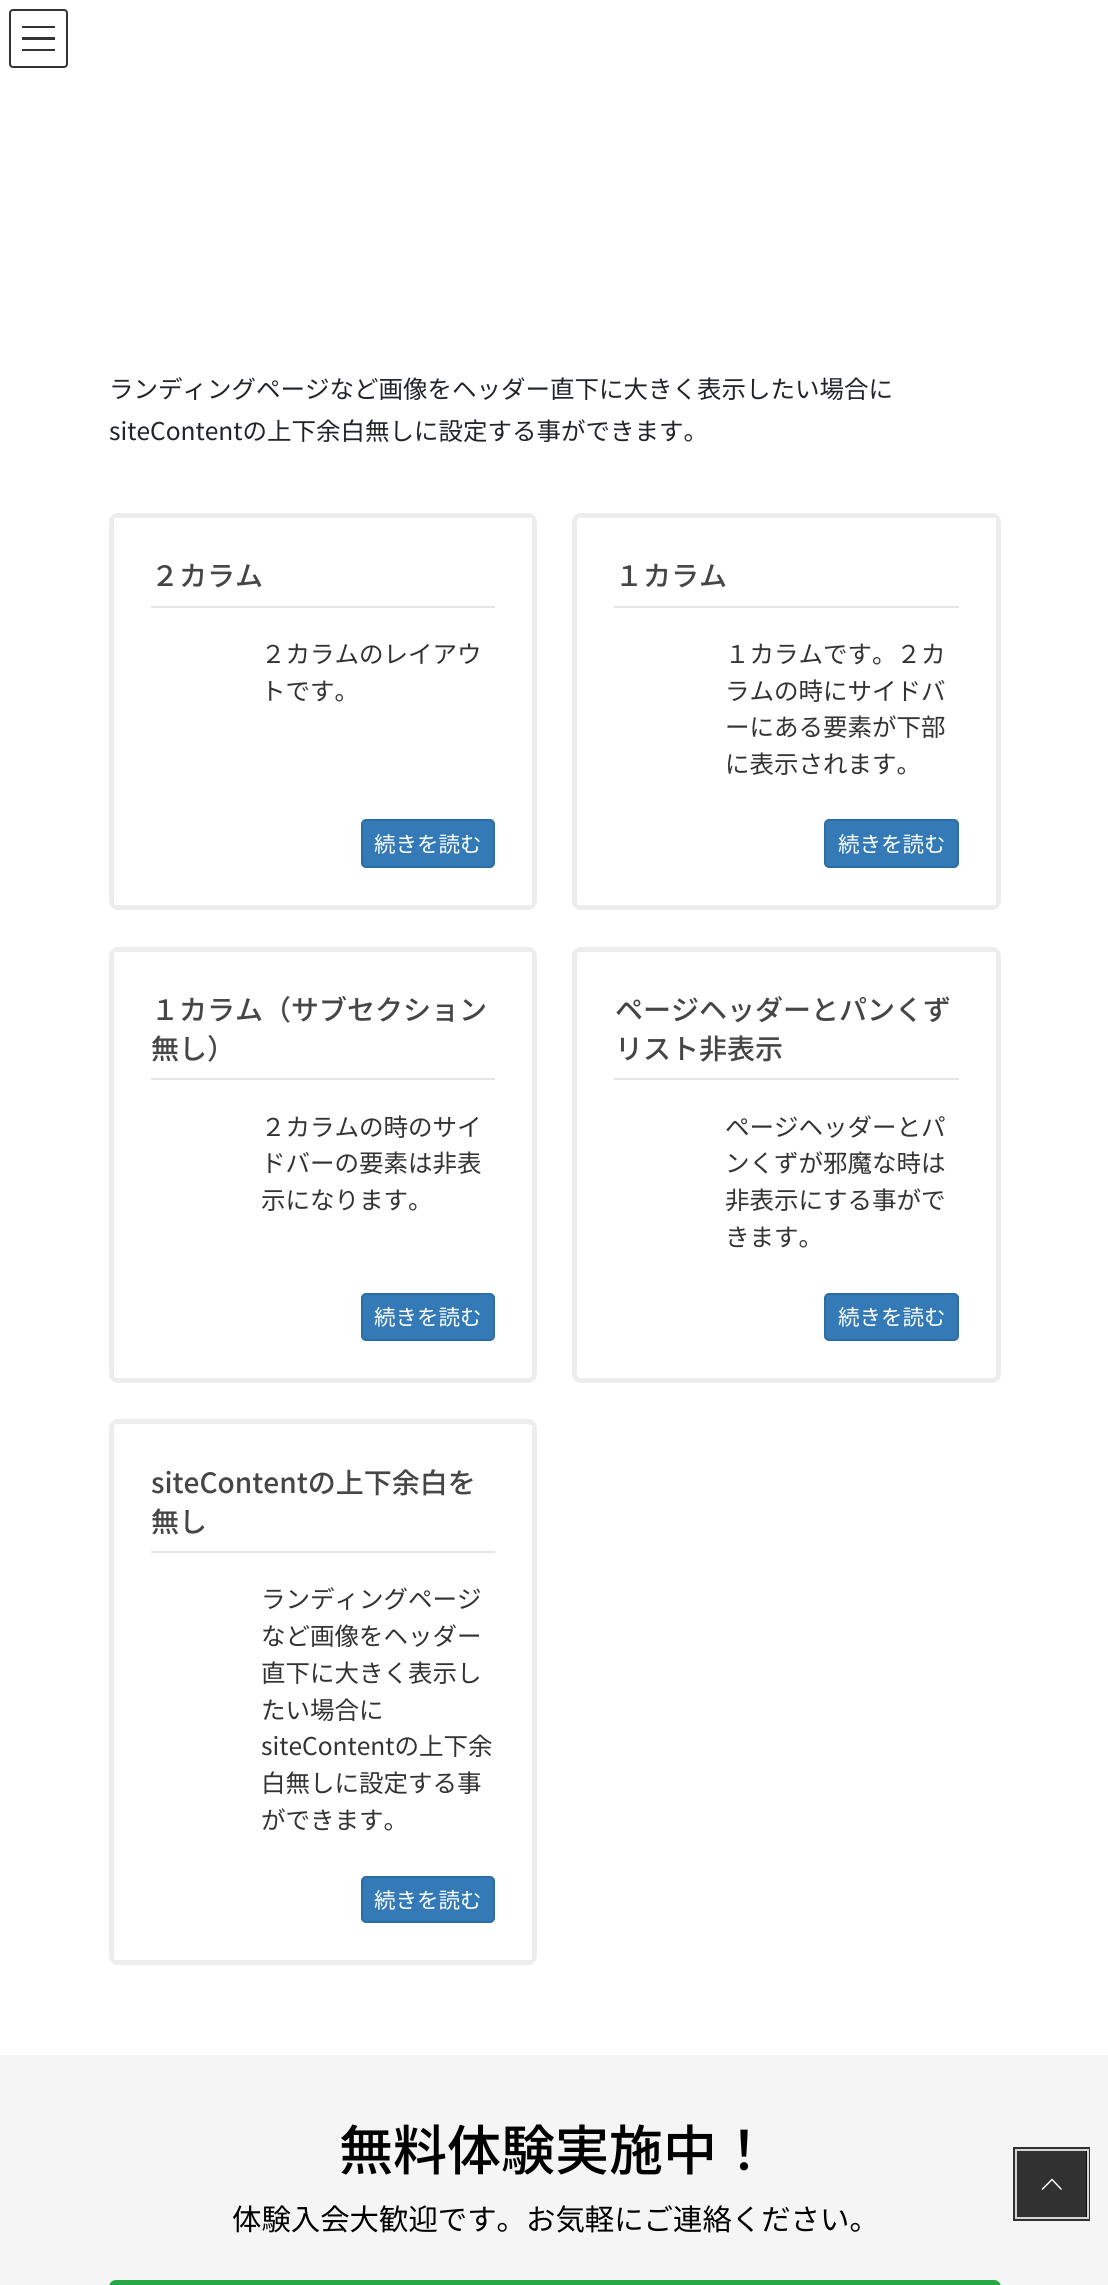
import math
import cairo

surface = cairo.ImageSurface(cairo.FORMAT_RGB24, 1108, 2285)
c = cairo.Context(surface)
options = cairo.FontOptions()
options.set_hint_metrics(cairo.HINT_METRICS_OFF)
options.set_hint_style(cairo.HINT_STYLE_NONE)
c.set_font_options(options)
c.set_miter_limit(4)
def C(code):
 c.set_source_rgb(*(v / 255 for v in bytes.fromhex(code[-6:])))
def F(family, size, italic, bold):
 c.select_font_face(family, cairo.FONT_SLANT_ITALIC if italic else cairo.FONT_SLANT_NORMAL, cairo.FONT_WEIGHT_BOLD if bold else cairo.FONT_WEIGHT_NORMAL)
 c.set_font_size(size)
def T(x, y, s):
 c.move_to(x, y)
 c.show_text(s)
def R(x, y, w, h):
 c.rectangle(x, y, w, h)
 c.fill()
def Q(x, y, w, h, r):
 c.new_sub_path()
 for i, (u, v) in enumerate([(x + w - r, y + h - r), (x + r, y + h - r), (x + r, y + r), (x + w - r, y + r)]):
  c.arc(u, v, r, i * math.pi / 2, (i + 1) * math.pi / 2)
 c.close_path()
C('ffffff')
c.paint()
C('333333')
R(22,26,33,2)
R(22,37,33,3)
R(22,49,33,2)
Q(10,10,57,57,3)
c.stroke()
F('Noto Sans JP',24.5,0,0)
C('212529')
T(109,398,'ランディングページなど画像をヘッダー直下に大きく表示したい場合に')
T(109,440,'siteContentの上下余白無しに設定する事ができます。')
Q(111.5,515.5,423,392,6.5)
C('ededed')
c.set_line_width(5)
c.stroke()
c.rectangle(115,519,416,385)
c.set_source_rgba(1,1,1,0.8)
c.set_line_width(2)
c.stroke()
C('e5e5e5')
R(151,606,344,2)
F('Noto Sans JP Medium',28,0,0)
C('464646')
T(151,586,'２カラム')
F('Noto Sans JP',24.5,0,0)
C('333333')
T(261,663,'２カラムのレイアウ')
T(261,700,'トです。')
C('337ab7')
Q(362,820,132,47,4)
c.fill_preserve()
C('2e6da4')
c.stroke()
F('Noto Sans JP',21.5,0,0)
C('ffffff')
T(374,852,'続きを読む')
Q(574.5,515.5,424,392,6.5)
C('ededed')
c.set_line_width(5)
c.stroke()
c.rectangle(579,519,416,385)
c.set_source_rgba(1,1,1,0.8)
c.set_line_width(2)
c.stroke()
C('e5e5e5')
R(614,606,345,2)
F('Noto Sans JP Medium',28,0,0)
C('464646')
T(615,586,'１カラム')
F('Noto Sans JP',24.5,0,0)
C('333333')
T(725,663,'１カラムです。２カ')
T(725,700,'ラムの時にサイドバ')
T(725,736,'ーにある要素が下部')
T(725,773,'に表示されます。')
C('337ab7')
Q(825,820,133,47,4)
c.fill_preserve()
C('2e6da4')
c.stroke()
F('Noto Sans JP',21.5,0,0)
C('ffffff')
T(838,852,'続きを読む')
Q(111.5,949.5,423,431,6.5)
C('ededed')
c.set_line_width(5)
c.stroke()
c.rectangle(115,953,416,423)
c.set_source_rgba(1,1,1,0.8)
c.set_line_width(2)
c.stroke()
C('e5e5e5')
R(151,1078,344,2)
F('Noto Sans JP Medium',28,0,0)
C('464646')
T(151,1020,'１カラム（サブセクション')
T(151,1059,'無し）')
F('Noto Sans JP',24.5,0,0)
C('333333')
T(261,1136,'２カラムの時のサイ')
T(261,1172,'ドバーの要素は非表')
T(261,1209,'示になります。')
C('337ab7')
Q(362,1294,132,46,4)
c.fill_preserve()
C('2e6da4')
c.stroke()
F('Noto Sans JP',21.5,0,0)
C('ffffff')
T(374,1325,'続きを読む')
Q(574.5,949.5,424,431,6.5)
C('ededed')
c.set_line_width(5)
c.stroke()
c.rectangle(579,953,416,423)
c.set_source_rgba(1,1,1,0.8)
c.set_line_width(2)
c.stroke()
C('e5e5e5')
R(614,1078,345,2)
F('Noto Sans JP Medium',28,0,0)
C('464646')
T(615,1020,'ページヘッダーとパンくず')
T(615,1059,'リスト非表示')
F('Noto Sans JP',24.5,0,0)
C('333333')
T(725,1136,'ページヘッダーとパ')
T(725,1172,'ンくずが邪魔な時は')
T(725,1209,'非表示にする事がで')
T(725,1246,'きます。')
C('337ab7')
Q(825,1294,133,46,4)
c.fill_preserve()
C('2e6da4')
c.stroke()
F('Noto Sans JP',21.5,0,0)
C('ffffff')
T(838,1325,'続きを読む')
Q(111.5,1421.5,423,541,6.5)
C('ededed')
c.set_line_width(5)
c.stroke()
c.rectangle(115,1426,416,533)
c.set_source_rgba(1,1,1,0.8)
c.set_line_width(2)
c.stroke()
C('e5e5e5')
R(151,1551,344,2)
F('Noto Sans JP Medium',28,0,0)
C('464646')
T(151,1493,'siteContentの上下余白を')
T(151,1532,'無し')
F('Noto Sans JP',24.5,0,0)
C('333333')
T(261,1608,'ランディングページ')
T(261,1645,'など画像をヘッダー')
T(261,1682,'直下に大きく表示し')
T(261,1719,'たい場合に')
T(261,1755,'siteContentの上下余')
T(261,1792,'白無しに設定する事')
T(261,1829,'ができます。')
C('337ab7')
Q(362,1877,132,45,4)
c.fill_preserve()
C('2e6da4')
c.stroke()
F('Noto Sans JP',21.5,0,0)
C('ffffff')
T(374,1908,'続きを読む')
C('f5f5f5')
R(0,2055,1108,230)
F('Noto Sans JP Medium',54,0,0)
C('000000')
T(339,2170,'無料体験実施中！')
F('Noto Sans JP',29.4,0,0)
T(232,2230,'体験入会大歓迎です。お気軽にご連絡ください。')
C('28a745')
Q(110,2281,890,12,6)
c.fill_preserve()
c.stroke()
c.rectangle(1015,2149,73,70)
C('313131')
c.set_line_width(4)
c.stroke()
c.rectangle(1016,2150,72,68)
C('d6d6d6')
c.set_line_width(2)
c.stroke()
c.set_source_rgba(0,0,0,0.8)
R(1017,2151,70,66)
C('ffffff')
c.new_path()
c.move_to(1062,2189)
c.line_to(1061,2190)
c.line_to(1052,2180.5)
c.line_to(1042.5,2190)
c.line_to(1041.5,2189)
c.line_to(1052,2178.5)
c.close_path()
c.fill()
surface.write_to_png('o.png')
